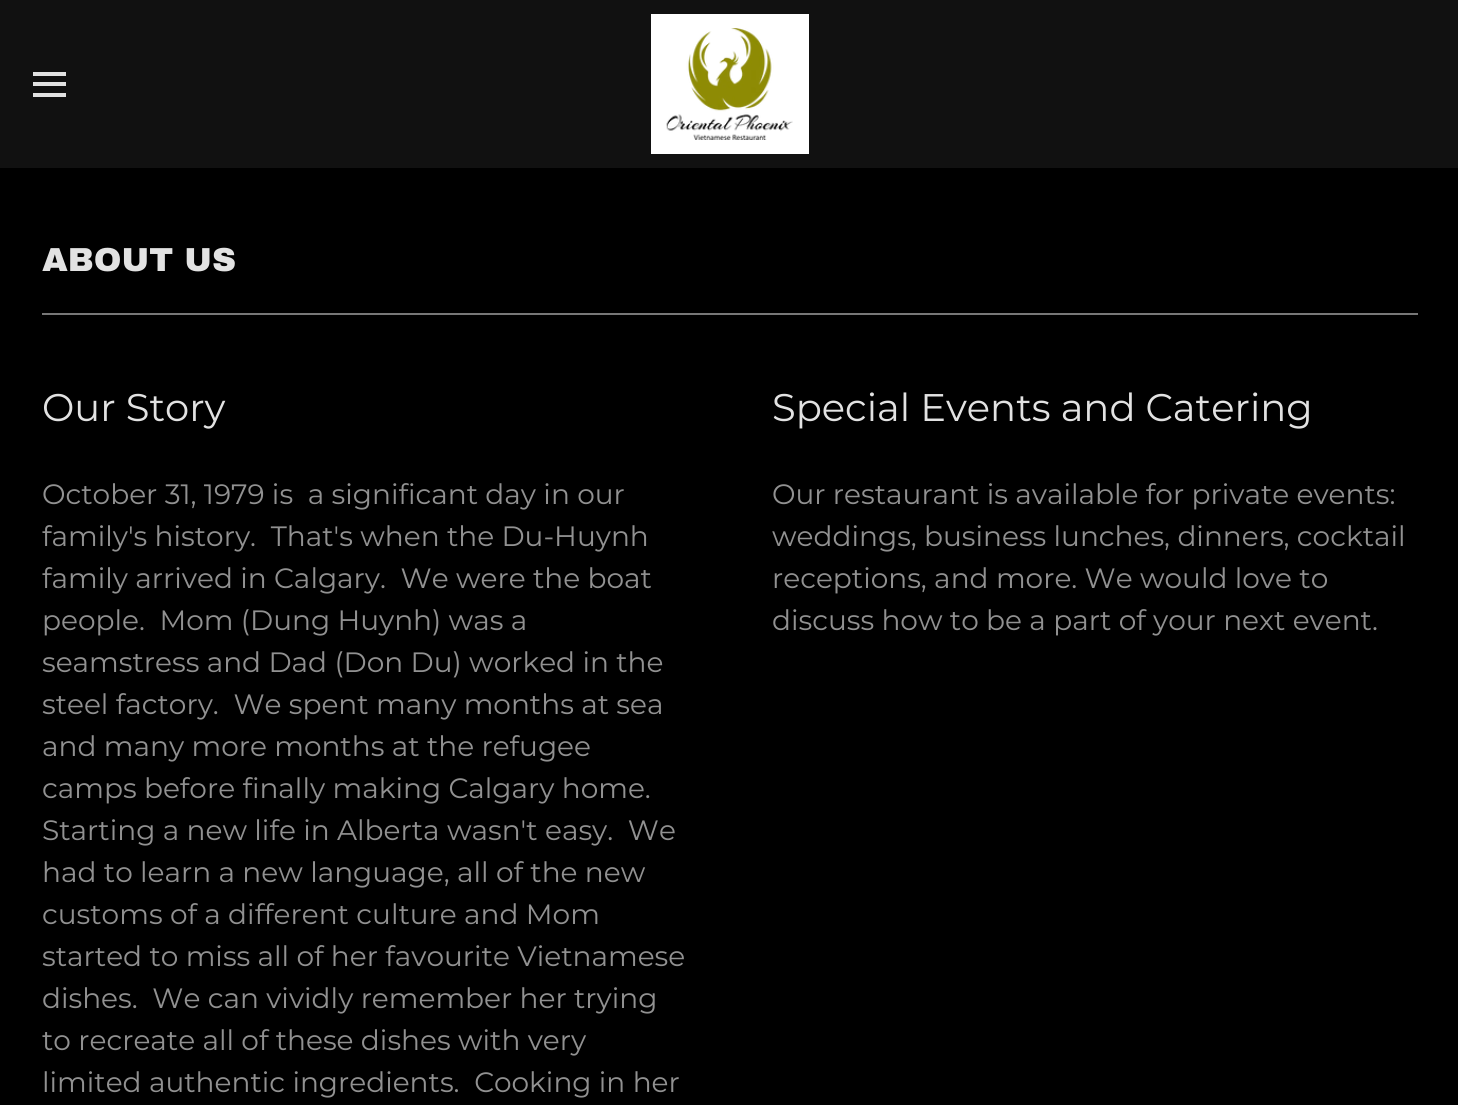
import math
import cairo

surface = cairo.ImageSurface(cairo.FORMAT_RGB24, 1458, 1105)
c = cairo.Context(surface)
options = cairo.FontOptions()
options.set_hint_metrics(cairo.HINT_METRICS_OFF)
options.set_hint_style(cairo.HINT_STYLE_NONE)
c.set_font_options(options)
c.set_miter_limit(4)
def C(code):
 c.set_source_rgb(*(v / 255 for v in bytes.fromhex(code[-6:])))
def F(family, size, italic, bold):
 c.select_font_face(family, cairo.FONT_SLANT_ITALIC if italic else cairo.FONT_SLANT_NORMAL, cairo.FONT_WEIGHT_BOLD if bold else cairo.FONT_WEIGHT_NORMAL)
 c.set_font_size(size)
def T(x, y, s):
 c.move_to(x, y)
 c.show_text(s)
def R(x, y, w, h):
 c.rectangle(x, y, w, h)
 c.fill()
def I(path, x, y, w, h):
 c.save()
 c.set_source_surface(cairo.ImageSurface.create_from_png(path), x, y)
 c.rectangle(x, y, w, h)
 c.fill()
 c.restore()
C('000000')
c.paint()
C('111111')
R(0,0,1458,168)
C('e2e2e2')
R(33,72,33,4)
R(33,82,33,4)
R(33,93,33,4)
C('ffffff')
R(651,14,158,140)
I('1.png',666,28,127,112)
F('Archivo Black Black',33.25,0,0)
C('e2e2e2')
T(42,271,'ABOUT US')
C('777777')
R(42,313,1376,2)
F('Montserrat',38.5,0,0)
C('e2e2e2')
T(42,421,'Our Story')
F('Montserrat',28,0,0)
C('919191')
T(42,504,'October 31, 1979 is  a significant day in our')
T(42,546,'family\'s history.  That\'s when the Du-Huynh')
T(42,588,'family arrived in Calgary.  We were the boat')
T(42,630,'people.  Mom (Dung Huynh) was a')
T(42,672,'seamstress and Dad (Don Du) worked in the')
T(42,714,'steel factory.  We spent many months at sea')
T(42,756,'and many more months at the refugee')
T(42,798,'camps before finally making Calgary home.')
T(42,840,'Starting a new life in Alberta wasn\'t easy.  We')
T(42,882,'had to learn a new language, all of the new')
T(42,924,'customs of a different culture and Mom')
T(42,966,'started to miss all of her favourite Vietnamese')
T(42,1008,'dishes.  We can vividly remember her trying')
T(42,1050,'to recreate all of these dishes with very')
T(42,1092,'limited authentic ingredients.  Cooking in her')
F('Montserrat',38.5,0,0)
C('e2e2e2')
T(772,421,'Special Events and Catering')
F('Montserrat',28,0,0)
C('919191')
T(772,504,'Our restaurant is available for private events:')
T(772,546,'weddings, business lunches, dinners, cocktail')
T(772,588,'receptions, and more. We would love to')
T(772,630,'discuss how to be a part of your next event.')
surface.write_to_png('o.png')
